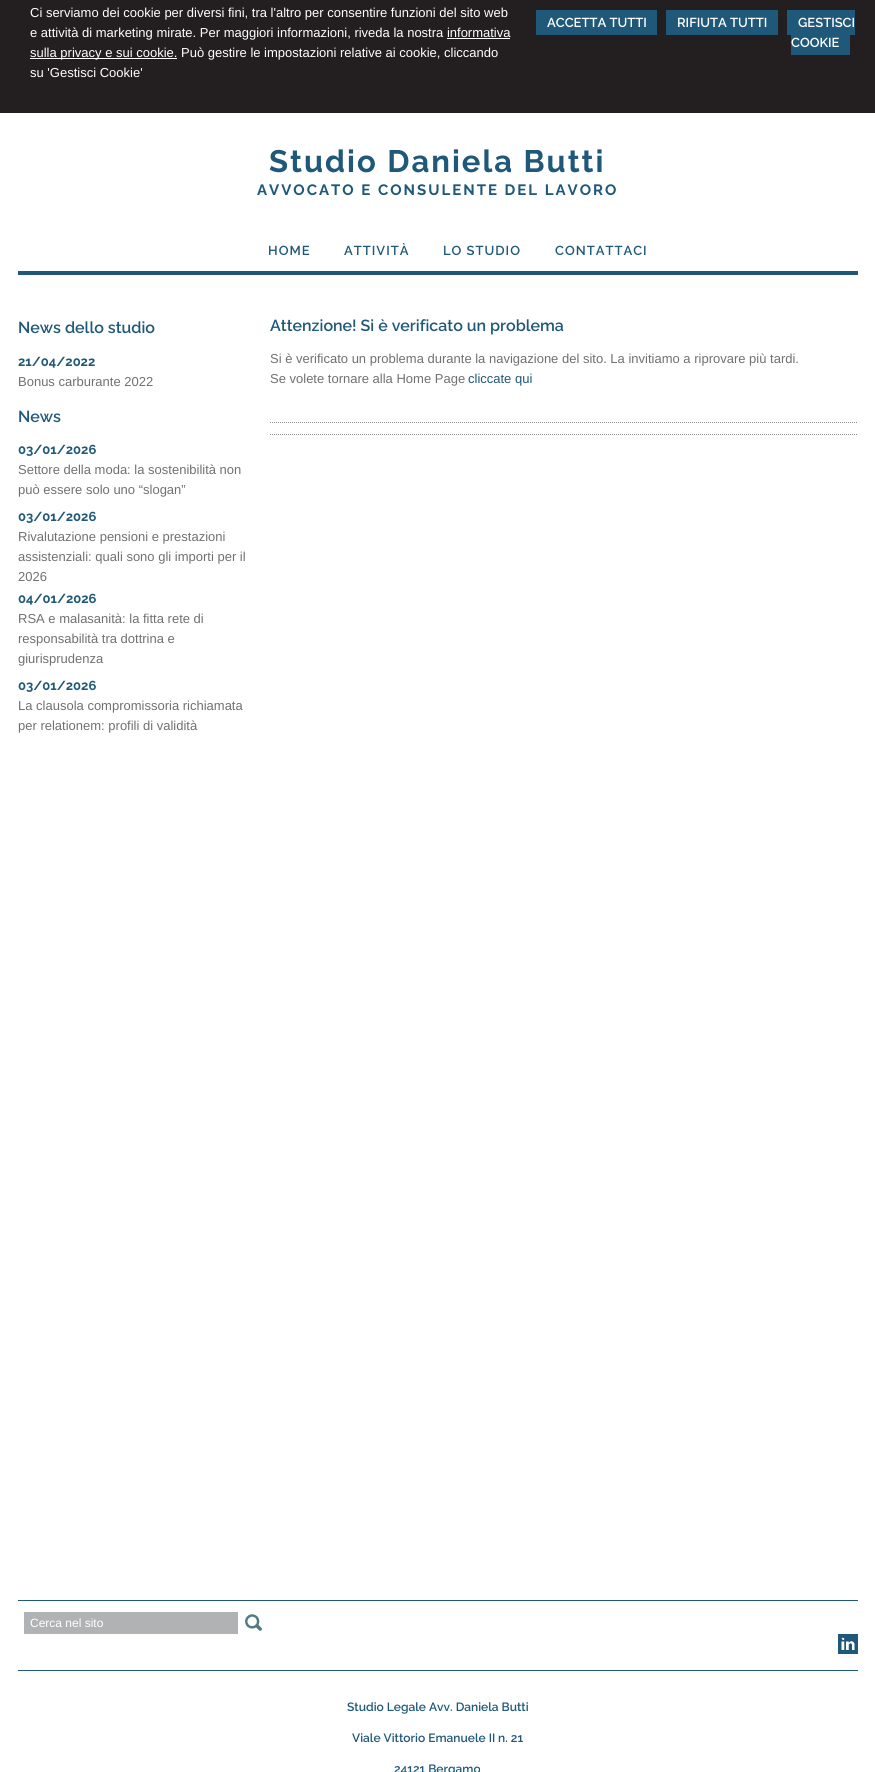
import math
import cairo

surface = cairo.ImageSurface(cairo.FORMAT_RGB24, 875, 1772)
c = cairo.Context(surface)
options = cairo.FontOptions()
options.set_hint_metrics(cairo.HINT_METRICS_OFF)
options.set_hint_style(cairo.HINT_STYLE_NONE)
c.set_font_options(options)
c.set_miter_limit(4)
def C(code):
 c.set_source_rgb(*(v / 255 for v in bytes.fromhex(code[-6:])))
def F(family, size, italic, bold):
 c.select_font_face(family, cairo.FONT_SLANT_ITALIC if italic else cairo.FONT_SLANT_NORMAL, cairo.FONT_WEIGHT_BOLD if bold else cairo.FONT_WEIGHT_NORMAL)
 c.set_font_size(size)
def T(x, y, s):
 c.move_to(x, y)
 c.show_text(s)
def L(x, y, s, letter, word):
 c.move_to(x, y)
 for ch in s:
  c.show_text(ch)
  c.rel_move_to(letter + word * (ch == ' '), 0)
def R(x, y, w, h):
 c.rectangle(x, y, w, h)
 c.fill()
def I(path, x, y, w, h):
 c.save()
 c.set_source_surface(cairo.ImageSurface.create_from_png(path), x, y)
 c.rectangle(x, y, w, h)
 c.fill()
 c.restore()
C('ffffff')
c.paint()
C('231f20')
R(0,0,875,113)
F('Liberation Sans',13,0,0)
C('ffffff')
T(30,17,'Ci serviamo dei cookie per diversi fini, tra l\'altro per consentire funzioni del sito web')
T(30,37,'e attività di marketing mirate. Per maggiori informazioni, riveda la nostra informativa')
R(30,58,147,1)
T(30,57,'sulla privacy e sui cookie. Può gestire le impostazioni relative ai cookie, cliccando')
R(447,38,63,1)
T(30,77,'su \'Gestisci Cookie\'')
C('1f5879')
R(536,10,121,25)
F('Raleway SemiBold',13,0,0)
C('ffffff')
T(547,27,'ACCETTA TUTTI')
C('1f5879')
R(666,10,112,25)
C('ffffff')
T(677,27,'RIFIUTA TUTTI')
C('1f5879')
R(787,10,68,25)
C('ffffff')
T(798,27,'GESTISCI')
C('1f5879')
R(791,35,59,20)
C('ffffff')
T(791,47,'COOKIE')
F('Raleway',31,0,1)
C('1f5879')
L(269,172,'Studio Daniela Butti',2,0)
F('Raleway',15,0,1)
L(257,195,'AVVOCATO E CONSULENTE DEL LAVORO',2,0)
F('Raleway SemiBold',13,0,0)
L(268,255,'HOME',1,0)
L(344,255,'ATTIVITÀ',1,0)
L(443,255,'LO STUDIO',1,0)
L(555,255,'CONTATTACI',1,0)
R(18,271,840,4)
F('Raleway SemiBold',16,0,0)
T(18,333,'News dello studio')
F('Raleway',13,0,1)
T(18,366,'21/04/2022')
F('Liberation Sans',13,0,0)
C('6f7072')
T(18,386,'Bonus carburante 2022')
F('Raleway SemiBold',16,0,0)
C('1f5879')
T(18,422,'News')
F('Raleway',13,0,1)
T(18,454,'03/01/2026')
F('Liberation Sans',13,0,0)
C('6f7072')
T(18,474,'Settore della moda: la sostenibilità non')
T(18,494,'può essere solo uno “slogan”')
F('Raleway',13,0,1)
C('1f5879')
T(18,521,'03/01/2026')
F('Liberation Sans',13,0,0)
C('6f7072')
T(18,541,'Rivalutazione pensioni e prestazioni')
T(18,561,'assistenziali: quali sono gli importi per il')
T(18,581,'2026')
F('Raleway',13,0,1)
C('1f5879')
T(18,603,'04/01/2026')
F('Liberation Sans',13,0,0)
C('6f7072')
T(18,623,'RSA e malasanità: la fitta rete di')
T(18,643,'responsabilità tra dottrina e')
T(18,663,'giurisprudenza')
F('Raleway',13,0,1)
C('1f5879')
T(18,690,'03/01/2026')
F('Liberation Sans',13,0,0)
C('6f7072')
T(18,710,'La clausola compromissoria richiamata')
T(18,730,'per relationem: profili di validità')
F('Raleway SemiBold',16,0,0)
C('1f5879')
T(270,331,'Attenzione! Si è verificato un problema')
F('Liberation Sans',13,0,0)
C('6f7072')
T(270,363,'Si è verificato un problema durante la navigazione del sito. La invitiamo a riprovare più tardi.')
T(270,383,'Se volete tornare alla Home Page')
C('1f5879')
T(468,383,'cliccate qui')
c.new_path()
c.move_to(270,422.5)
c.line_to(858,422.5)
C('909090')
c.set_line_width(1)
c.set_dash([1,1])
c.stroke()
c.new_path()
c.move_to(270,434.5)
c.line_to(858,434.5)
c.stroke()
C('1f5879')
R(18,1600,840,1)
R(18,1670,840,1)
C('b1b2b3')
R(24,1612,214,22)
F('Liberation Sans',12,0,0)
C('ffffff')
T(30,1627,'Cerca nel sito')
I('1.png',245,1614,17,17)
I('2.png',838,1634,20,20)
F('Raleway SemiBold',12,0,0)
C('1f5879')
T(347,1711,'Studio Legale Avv. Daniela Butti')
T(352,1742,'Viale Vittorio Emanuele II n. 21')
T(394,1773,'24121 Bergamo')
surface.write_to_png('o.png')
